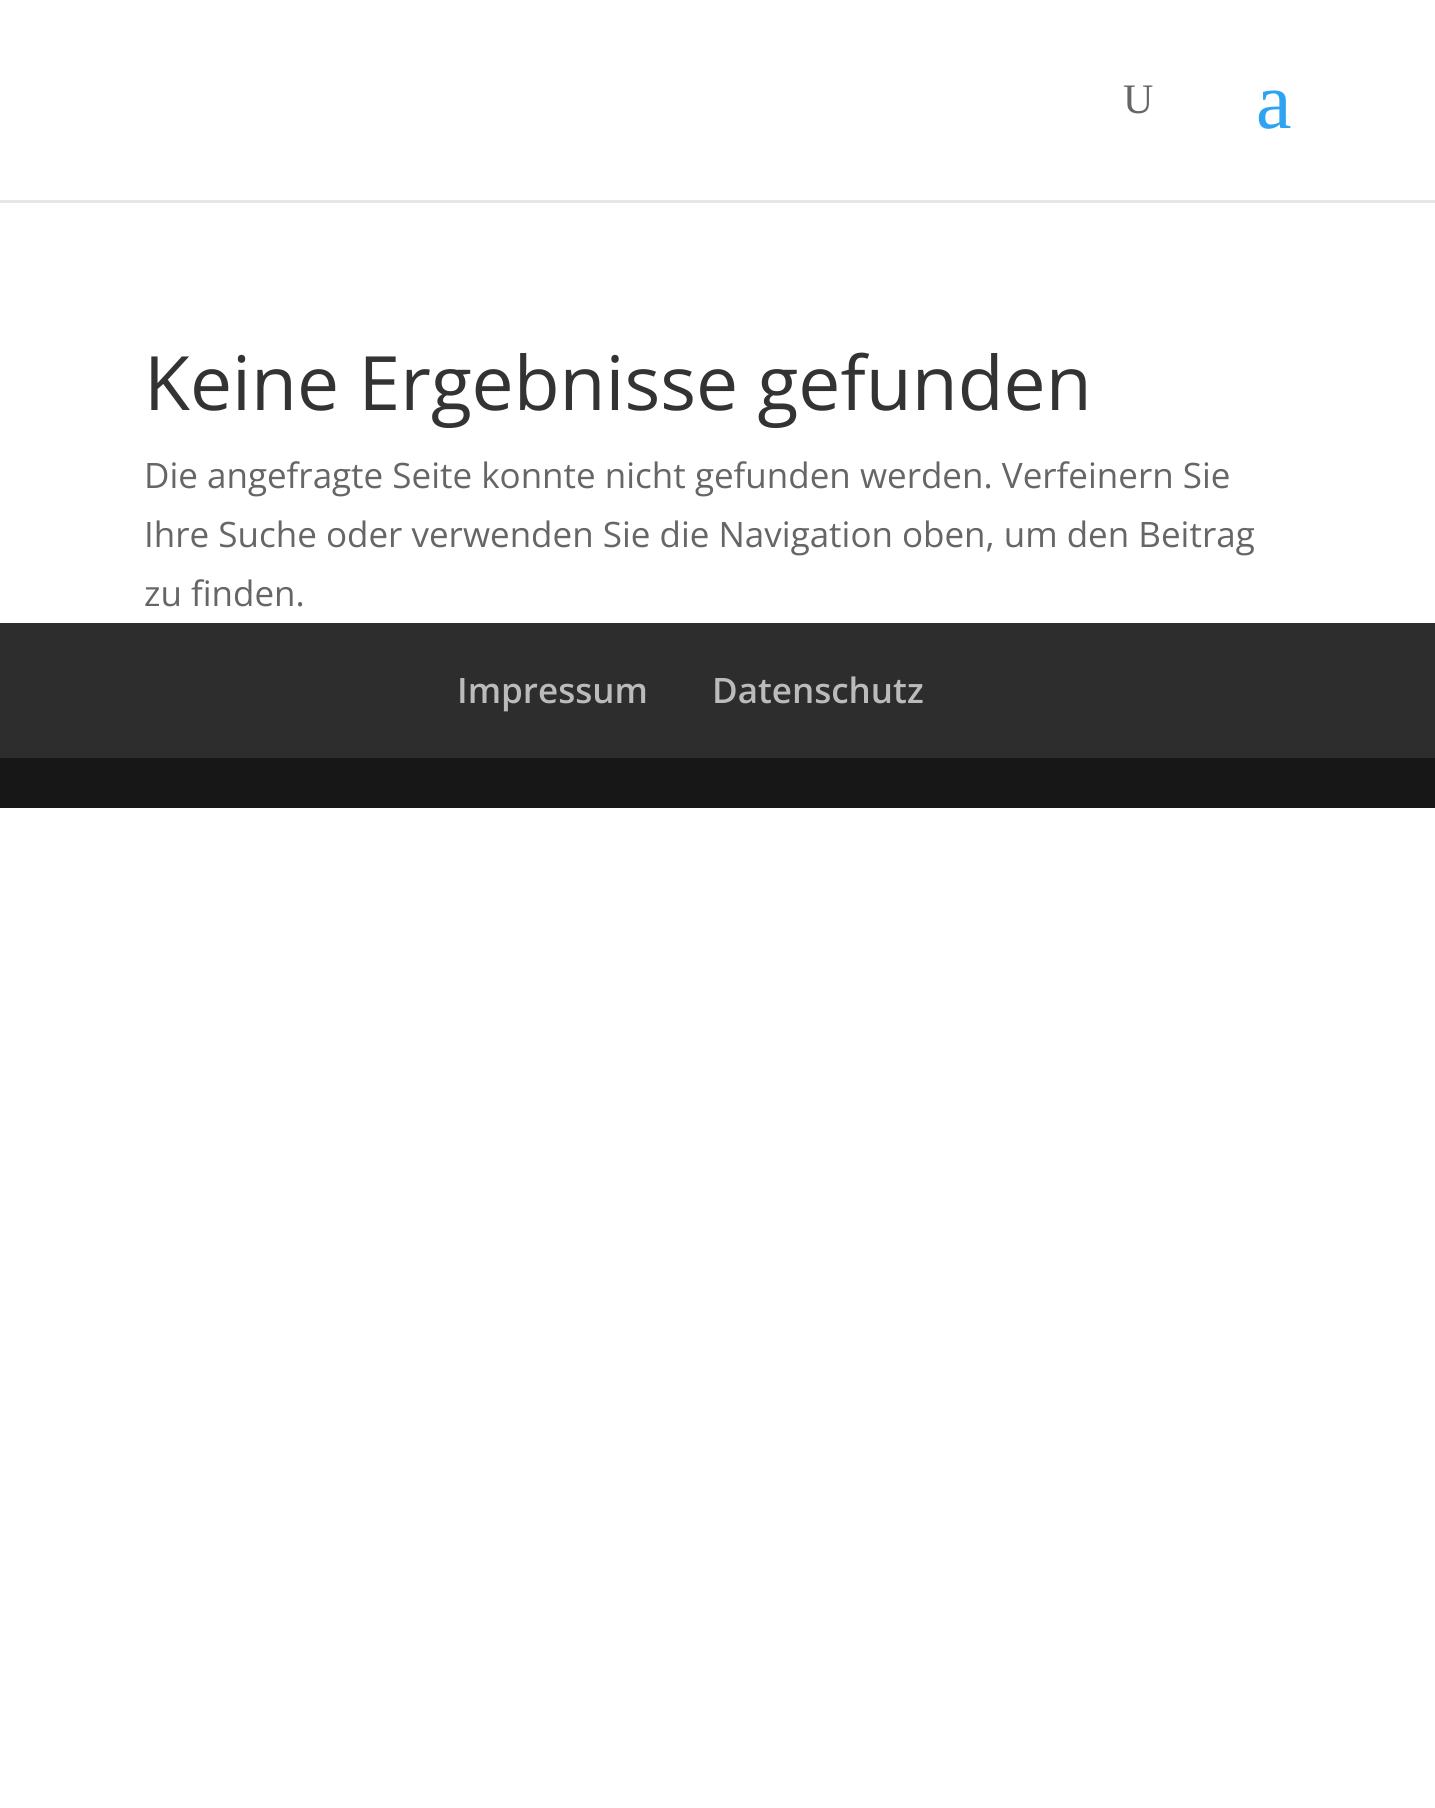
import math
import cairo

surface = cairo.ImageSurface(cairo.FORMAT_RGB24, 1435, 1808)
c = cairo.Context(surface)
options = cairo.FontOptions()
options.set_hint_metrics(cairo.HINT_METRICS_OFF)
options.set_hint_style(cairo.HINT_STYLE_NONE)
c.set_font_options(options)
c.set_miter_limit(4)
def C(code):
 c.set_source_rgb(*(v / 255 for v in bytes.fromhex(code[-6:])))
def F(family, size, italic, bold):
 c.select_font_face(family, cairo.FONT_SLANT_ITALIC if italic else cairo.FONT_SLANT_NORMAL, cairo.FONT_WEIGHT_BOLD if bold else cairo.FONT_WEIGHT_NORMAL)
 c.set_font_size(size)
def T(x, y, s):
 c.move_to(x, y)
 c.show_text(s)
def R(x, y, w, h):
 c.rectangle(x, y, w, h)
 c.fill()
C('ffffff')
c.paint()
C('e6e6e6')
R(0,200,1435,3)
F('Liberation Serif',42,0,0)
C('666666')
T(1123,113,'U')
F('Liberation Serif',80,0,0)
C('2ea3f2')
T(1256,128,'a')
F('Open Sans',75,0,0)
C('333333')
T(144,410,'Keine Ergebnisse gefunden')
F('Open Sans',35,0,0)
C('666666')
T(144,488,'Die angefragte Seite konnte nicht gefunden werden. Verfeinern Sie')
T(144,547,'Ihre Suche oder verwenden Sie die Navigation oben, um den Beitrag')
T(144,606,'zu finden.')
C('2d2d2d')
R(0,623,1435,135)
F('Open Sans SemiBold',35,0,0)
C('bbbbbb')
T(457,703,'Impressum')
T(712,703,'Datenschutz')
C('171717')
R(0,758,1435,50)
surface.write_to_png('o.png')
